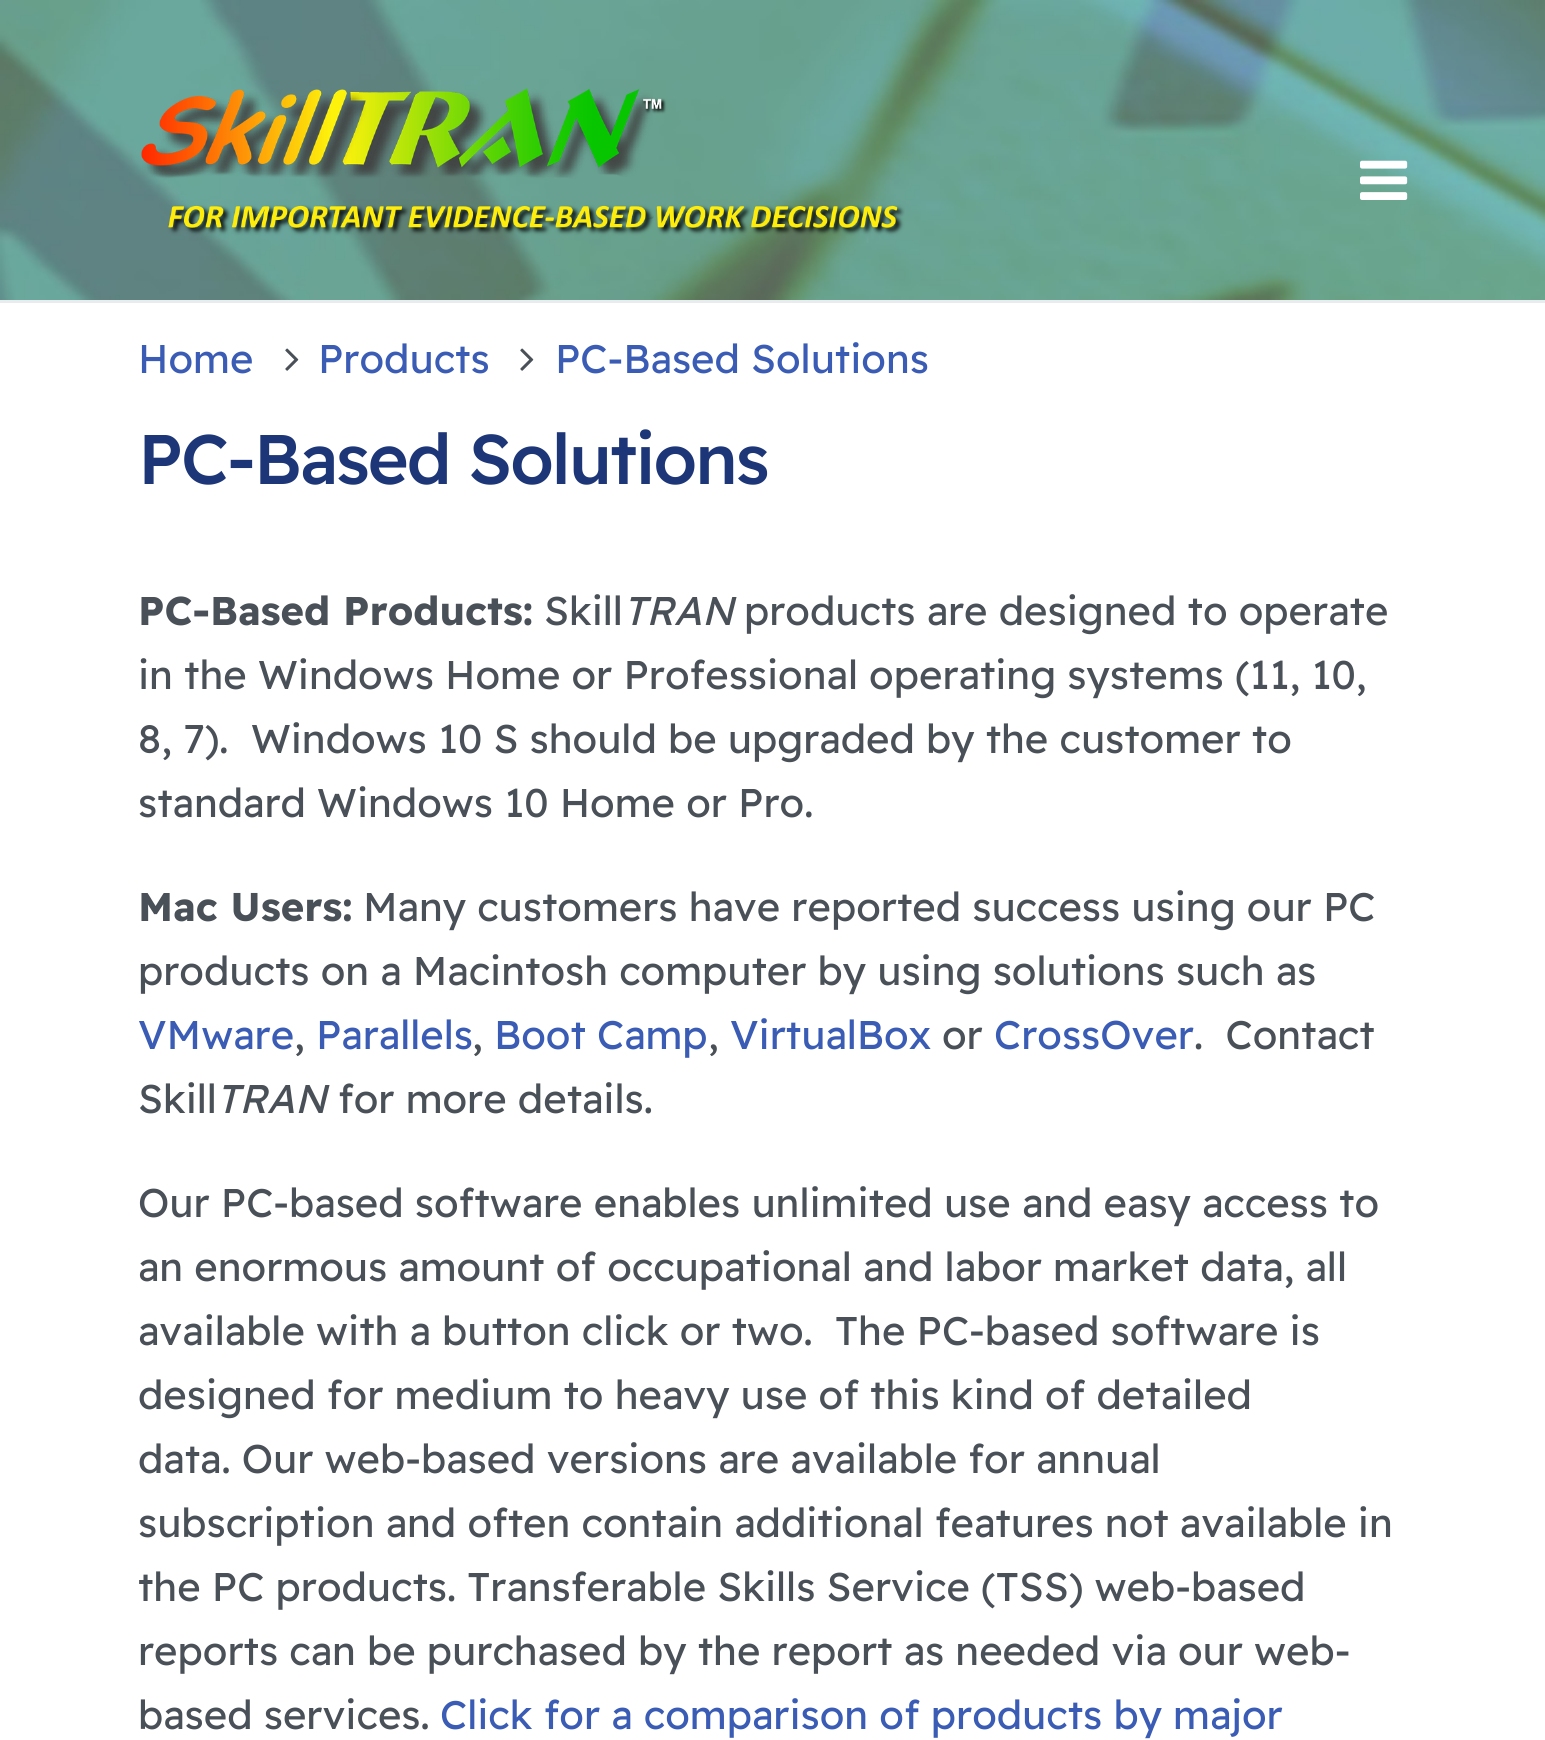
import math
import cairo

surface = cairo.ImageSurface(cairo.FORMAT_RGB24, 1545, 1740)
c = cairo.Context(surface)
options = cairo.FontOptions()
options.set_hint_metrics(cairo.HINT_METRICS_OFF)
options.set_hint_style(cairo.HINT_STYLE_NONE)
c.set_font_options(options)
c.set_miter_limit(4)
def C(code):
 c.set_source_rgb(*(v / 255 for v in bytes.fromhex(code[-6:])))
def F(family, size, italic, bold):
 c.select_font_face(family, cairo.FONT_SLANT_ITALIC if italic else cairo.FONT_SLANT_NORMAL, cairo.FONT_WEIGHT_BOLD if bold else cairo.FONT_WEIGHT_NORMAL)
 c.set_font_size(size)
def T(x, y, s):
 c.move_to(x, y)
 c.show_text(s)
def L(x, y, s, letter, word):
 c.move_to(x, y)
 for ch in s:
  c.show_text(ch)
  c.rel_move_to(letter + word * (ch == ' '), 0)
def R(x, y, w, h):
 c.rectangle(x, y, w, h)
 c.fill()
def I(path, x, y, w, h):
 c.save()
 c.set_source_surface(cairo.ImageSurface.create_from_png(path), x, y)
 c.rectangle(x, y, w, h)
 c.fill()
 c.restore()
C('ffffff')
c.paint()
C('e9ecef')
R(0,300,1545,3)
I('1.png',0,0,1545,300)
I('2.png',141,88,764,155)
I('3.png',1360,160,48,40)
F('Readex Pro',40,0,0)
C('3a5cb4')
T(138,373,'Home')
I('4.png',285,348,14,23)
T(318,373,'Products')
I('4.png',520,348,14,23)
T(555,373,'PC-Based Solutions')
F('Readex Pro Medium',70,0,0)
C('1d3677')
L(138,484,'PC-Based Solutions',-2,0)
F('Readex Pro',40,0,1)
C('495057')
T(138,625,'PC-Based Products:')
F('Readex Pro',40,0,0)
T(544,625,'Skill')
F('Readex Pro',40,1,0)
T(623,625,'TRAN')
F('Readex Pro',40,0,0)
T(744,625,'products are designed to operate')
T(138,689,'in the Windows Home or Professional operating systems (11, 10,')
T(138,753,'8, 7).  Windows 10 S should be upgraded by the customer to')
T(138,817,'standard Windows 10 Home or Pro.')
F('Readex Pro',40,0,1)
T(138,921,'Mac Users:')
F('Readex Pro',40,0,0)
T(363,921,'Many customers have reported success using our PC')
T(138,985,'products on a Macintosh computer by using solutions such as')
C('3a5cb4')
T(138,1049,'VMware')
C('495057')
T(294,1049,',')
C('3a5cb4')
T(316,1049,'Parallels')
C('495057')
T(472,1049,',')
C('3a5cb4')
T(494,1049,'Boot Camp')
C('495057')
T(708,1049,',')
C('3a5cb4')
T(730,1049,'VirtualBox')
C('495057')
T(942,1049,'or')
C('3a5cb4')
T(994,1049,'CrossOver')
C('495057')
T(1194,1049,'.  Contact')
T(138,1113,'Skill')
F('Readex Pro',40,1,0)
T(216,1113,'TRAN')
F('Readex Pro',40,0,0)
T(338,1113,'for more details.')
T(138,1217,'Our PC-based software enables unlimited use and easy access to')
T(138,1281,'an enormous amount of occupational and labor market data, all')
T(138,1345,'available with a button click or two.  The PC-based software is')
T(138,1409,'designed for medium to heavy use of this kind of detailed')
T(138,1473,'data. Our web-based versions are available for annual')
T(138,1537,'subscription and often contain additional features not available in')
T(138,1601,'the PC products. Transferable Skills Service (TSS) web-based')
T(138,1665,'reports can be purchased by the report as needed via our web-')
T(138,1729,'based services.')
C('3a5cb4')
T(440,1729,'Click for a comparison of products by major')
surface.write_to_png('o.png')
